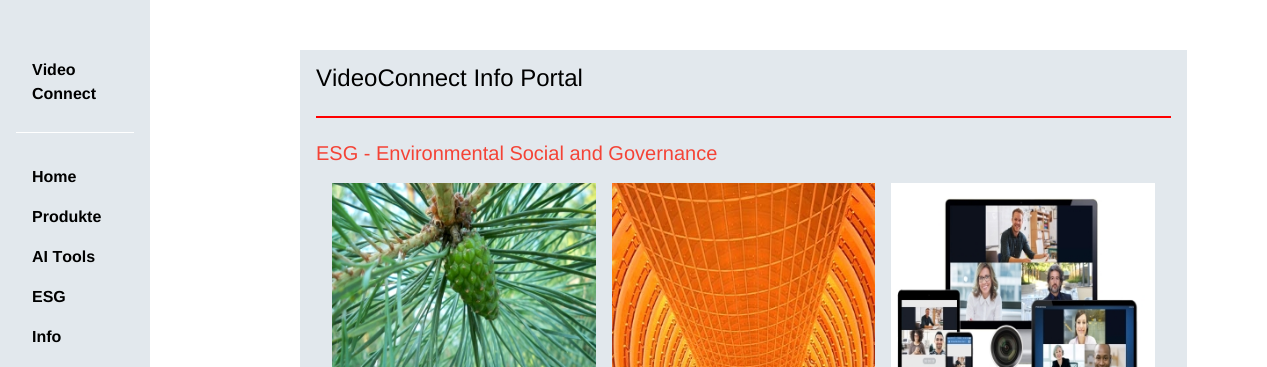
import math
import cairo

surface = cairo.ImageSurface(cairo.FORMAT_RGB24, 1267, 367)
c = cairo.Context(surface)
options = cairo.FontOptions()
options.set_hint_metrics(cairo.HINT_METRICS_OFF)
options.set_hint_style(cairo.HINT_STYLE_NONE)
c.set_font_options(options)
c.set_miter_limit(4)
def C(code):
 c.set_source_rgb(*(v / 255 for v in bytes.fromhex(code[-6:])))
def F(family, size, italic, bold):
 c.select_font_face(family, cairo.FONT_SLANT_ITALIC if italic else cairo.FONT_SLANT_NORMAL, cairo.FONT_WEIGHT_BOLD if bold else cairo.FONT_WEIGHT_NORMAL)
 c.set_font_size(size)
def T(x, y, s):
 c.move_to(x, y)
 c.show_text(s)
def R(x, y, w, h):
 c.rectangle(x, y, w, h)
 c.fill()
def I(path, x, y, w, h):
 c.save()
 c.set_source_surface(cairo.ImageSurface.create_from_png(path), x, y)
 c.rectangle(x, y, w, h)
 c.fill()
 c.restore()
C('ffffff')
c.paint()
C('e2e8ed')
R(0,0,150,367)
C('ffffff')
R(16,132,118,1)
F('Liberation Sans',16,0,1)
C('000000')
T(32,75,'Video')
T(32,99,'Connect')
T(32,182,'Home')
T(32,222,'Produkte')
T(32,262,'AI Tools')
T(32,302,'ESG')
T(32,342,'Info')
C('e2e8ed')
R(300,50,887,317)
F('Liberation Sans',24,0,0)
C('000000')
T(316,86,'VideoConnect Info Portal')
C('ff0000')
R(316,116,855,2)
F('Liberation Sans',20,0,0)
C('f44336')
T(316,160,'ESG - Environmental Social and Governance')
I('1.png',332,183,264,184)
I('2.png',612,183,263,184)
I('3.png',891,183,264,184)
surface.write_to_png('o.png')
